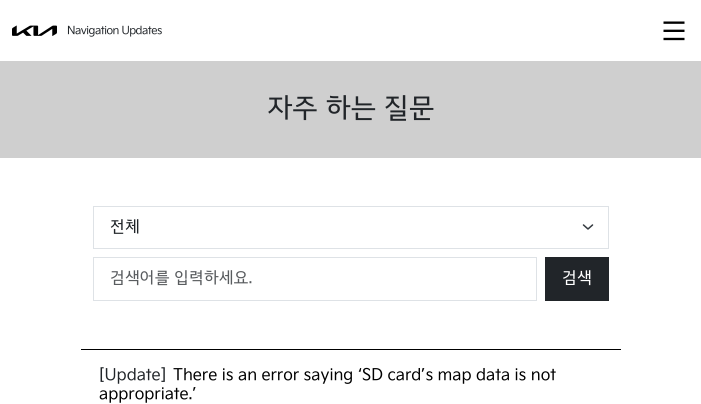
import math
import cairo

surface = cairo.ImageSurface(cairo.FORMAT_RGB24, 701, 404)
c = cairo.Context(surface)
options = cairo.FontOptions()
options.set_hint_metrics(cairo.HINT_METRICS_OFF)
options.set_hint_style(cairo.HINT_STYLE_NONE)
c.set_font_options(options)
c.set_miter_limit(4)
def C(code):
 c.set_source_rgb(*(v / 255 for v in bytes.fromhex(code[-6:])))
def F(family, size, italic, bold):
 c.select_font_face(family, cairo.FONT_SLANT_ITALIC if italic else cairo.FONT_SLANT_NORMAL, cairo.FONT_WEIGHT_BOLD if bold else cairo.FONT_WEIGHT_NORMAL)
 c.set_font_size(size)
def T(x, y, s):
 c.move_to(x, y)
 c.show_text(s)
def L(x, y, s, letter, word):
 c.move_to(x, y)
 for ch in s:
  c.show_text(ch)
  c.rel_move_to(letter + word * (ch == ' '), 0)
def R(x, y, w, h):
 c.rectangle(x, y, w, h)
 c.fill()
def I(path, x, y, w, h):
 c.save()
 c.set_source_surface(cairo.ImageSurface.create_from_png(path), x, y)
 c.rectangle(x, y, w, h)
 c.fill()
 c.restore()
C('ffffff')
c.paint()
I('1.png',12,25,45,11)
F('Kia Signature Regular',11,0,0)
C('212529')
L(67,34,'Navigation Updates',-.5,0)
I('2.png',663,21,22,20)
C('cfcfcf')
R(0,61,701,97)
F('Kia Signature Regular',27.25,0,0)
C('212529')
T(267,117,'자주 하는 질문')
c.new_path()
c.move_to(583.5,225)
c.line_to(588,229)
c.line_to(592.5,225)
C('343a40')
c.set_line_width(1.5)
c.set_line_cap(cairo.LINE_CAP_ROUND)
c.set_line_join(cairo.LINE_JOIN_ROUND)
c.stroke()
c.rectangle(93.5,206.5,515,42)
C('dee2e6')
c.set_line_width(1)
c.set_line_cap(cairo.LINE_CAP_BUTT)
c.set_line_join(cairo.LINE_JOIN_MITER)
c.stroke()
F('Kia Signature Regular',16,0,0)
C('212529')
T(110,232,'전체')
c.rectangle(93.5,257.5,443,43)
C('dee2e6')
c.stroke()
C('595c5f')
T(110,283,'검색어를 입력하세요.')
C('212529')
R(545,257,64,44)
C('ffffff')
T(562,283,'검색')
C('000000')
R(81,349,540,1)
C('212529')
T(99,380,'[Update]')
C('000000')
T(173,380,'There is an error saying ‘SD card’s map data is not')
T(99,399,'appropriate.’')
surface.write_to_png('o.png')
